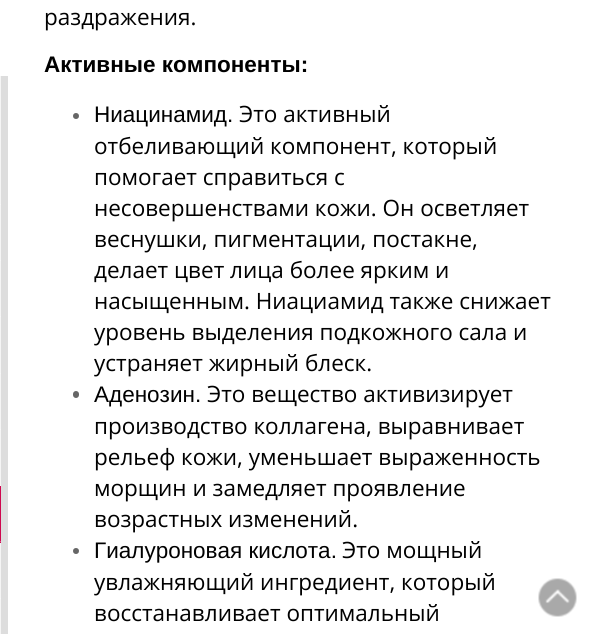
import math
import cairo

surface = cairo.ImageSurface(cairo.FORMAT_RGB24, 600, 634)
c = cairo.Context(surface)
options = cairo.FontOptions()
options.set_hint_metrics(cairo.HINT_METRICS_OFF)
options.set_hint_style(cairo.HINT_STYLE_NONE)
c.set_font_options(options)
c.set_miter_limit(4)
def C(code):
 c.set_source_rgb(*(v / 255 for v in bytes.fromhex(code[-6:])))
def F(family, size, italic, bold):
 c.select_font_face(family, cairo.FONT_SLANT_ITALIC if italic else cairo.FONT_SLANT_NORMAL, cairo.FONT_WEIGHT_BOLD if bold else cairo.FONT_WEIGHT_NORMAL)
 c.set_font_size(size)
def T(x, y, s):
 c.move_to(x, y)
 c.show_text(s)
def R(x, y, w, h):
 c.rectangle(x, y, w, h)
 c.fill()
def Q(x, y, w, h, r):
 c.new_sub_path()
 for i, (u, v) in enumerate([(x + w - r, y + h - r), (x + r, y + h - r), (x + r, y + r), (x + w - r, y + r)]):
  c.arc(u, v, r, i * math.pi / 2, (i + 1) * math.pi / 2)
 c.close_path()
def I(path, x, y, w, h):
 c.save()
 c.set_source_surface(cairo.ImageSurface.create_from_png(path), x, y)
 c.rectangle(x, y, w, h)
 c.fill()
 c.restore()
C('ffffff')
c.paint()
C('f5f5f5')
R(0,76,1,558)
C('dddddd')
R(1,76,7,558)
C('f8f8f8')
R(0,204,1,1)
R(0,260,1,1)
R(0,316,1,1)
R(0,373,1,1)
R(0,429,1,1)
R(0,485,1,1)
C('cf084f')
R(0,486,1,57)
C('dd5284')
R(0,541,1,1)
C('f8f8f8')
R(0,598,1,1)
F('Open Sans',22.5,0,0)
C('000000')
T(44,25,'раздражения.')
F('Liberation Sans',22.5,0,1)
T(44,72,'Активные компоненты:')
C('666666')
c.new_path()
c.arc(76,116,3,0,2 * math.pi)
c.fill()
F('Liberation Sans',22.5,0,0)
C('000000')
T(94,122,'Ниацинамид.')
F('Open Sans',22.5,0,0)
T(239,122,'Это активный')
T(94,154,'отбеливающий компонент, который')
T(94,185,'помогает справиться с')
T(94,216,'несовершенствами кожи. Он осветляет')
T(94,247,'веснушки, пигментации, постакне,')
T(94,278,'делает цвет лица более ярким и')
T(94,309,'насыщенным. Ниациамид также снижает')
T(94,340,'уровень выделения подкожного сала и')
T(94,371,'устраняет жирный блеск.')
C('666666')
Q(73,391,6,7,3)
c.fill()
F('Liberation Sans',22.5,0,0)
C('000000')
T(94,402,'Аденозин.')
F('Open Sans',22.5,0,0)
T(207,402,'Это вещество активизирует')
T(94,434,'производство коллагена, выравнивает')
T(94,465,'рельеф кожи, уменьшает выраженность')
T(94,496,'морщин и замедляет проявление')
T(94,527,'возрастных изменений.')
C('666666')
c.new_path()
c.arc(76,551,3,0,2 * math.pi)
c.fill()
F('Liberation Sans',22.5,0,0)
C('000000')
T(94,558,'Гиалуроновая кислота.')
F('Open Sans',22.5,0,0)
T(342,558,'Это мощный')
T(94,590,'увлажняющий ингредиент, который')
T(94,621,'восстанавливает оптимальный')
I('1.png',538,578,39,39)
surface.write_to_png('o.png')
